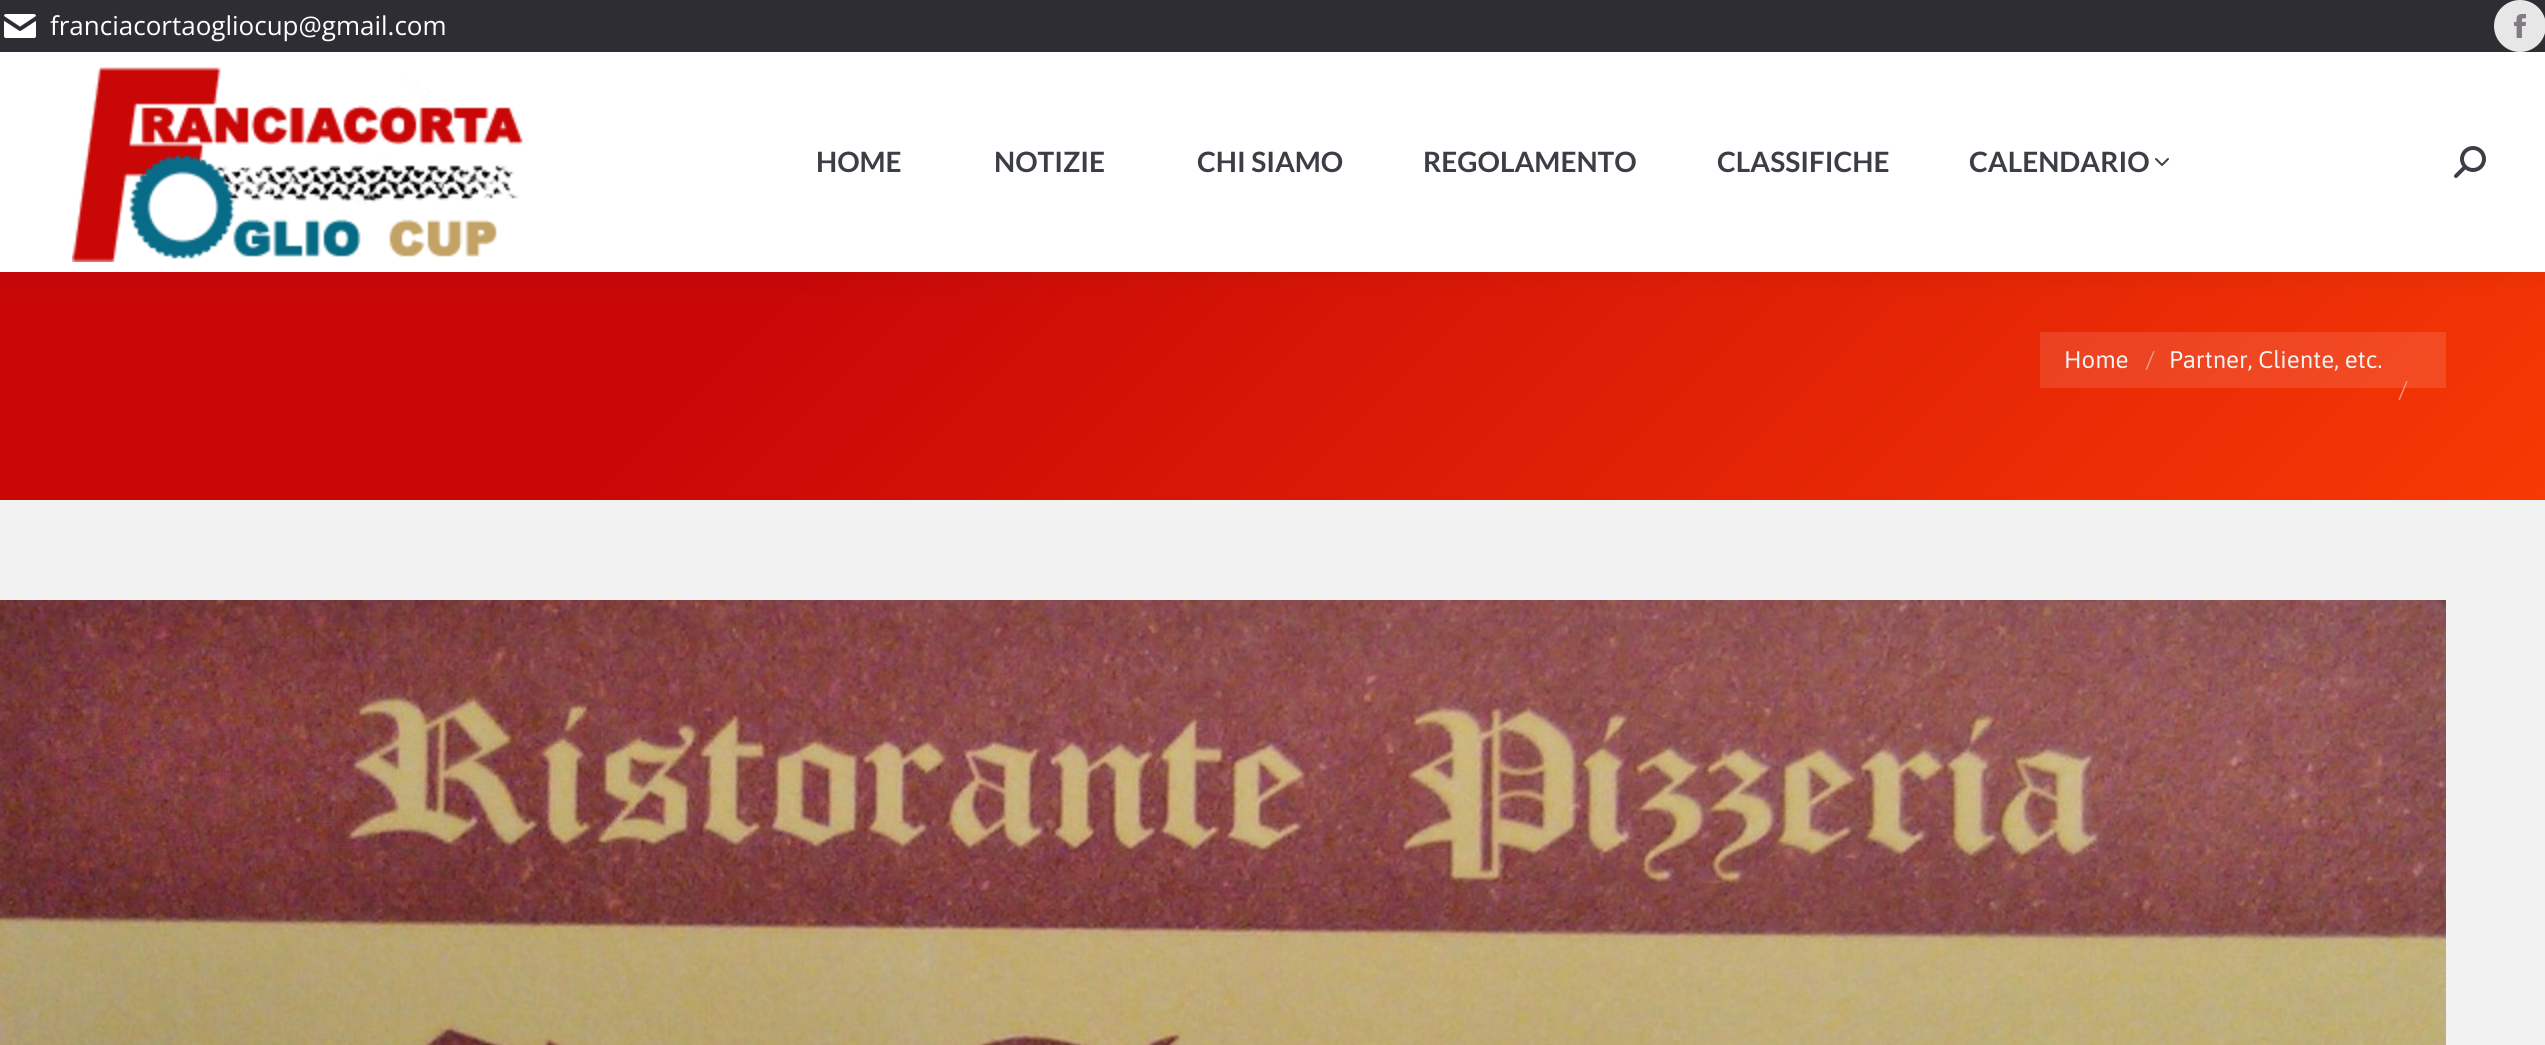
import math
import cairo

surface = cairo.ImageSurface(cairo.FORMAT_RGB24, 2545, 1045)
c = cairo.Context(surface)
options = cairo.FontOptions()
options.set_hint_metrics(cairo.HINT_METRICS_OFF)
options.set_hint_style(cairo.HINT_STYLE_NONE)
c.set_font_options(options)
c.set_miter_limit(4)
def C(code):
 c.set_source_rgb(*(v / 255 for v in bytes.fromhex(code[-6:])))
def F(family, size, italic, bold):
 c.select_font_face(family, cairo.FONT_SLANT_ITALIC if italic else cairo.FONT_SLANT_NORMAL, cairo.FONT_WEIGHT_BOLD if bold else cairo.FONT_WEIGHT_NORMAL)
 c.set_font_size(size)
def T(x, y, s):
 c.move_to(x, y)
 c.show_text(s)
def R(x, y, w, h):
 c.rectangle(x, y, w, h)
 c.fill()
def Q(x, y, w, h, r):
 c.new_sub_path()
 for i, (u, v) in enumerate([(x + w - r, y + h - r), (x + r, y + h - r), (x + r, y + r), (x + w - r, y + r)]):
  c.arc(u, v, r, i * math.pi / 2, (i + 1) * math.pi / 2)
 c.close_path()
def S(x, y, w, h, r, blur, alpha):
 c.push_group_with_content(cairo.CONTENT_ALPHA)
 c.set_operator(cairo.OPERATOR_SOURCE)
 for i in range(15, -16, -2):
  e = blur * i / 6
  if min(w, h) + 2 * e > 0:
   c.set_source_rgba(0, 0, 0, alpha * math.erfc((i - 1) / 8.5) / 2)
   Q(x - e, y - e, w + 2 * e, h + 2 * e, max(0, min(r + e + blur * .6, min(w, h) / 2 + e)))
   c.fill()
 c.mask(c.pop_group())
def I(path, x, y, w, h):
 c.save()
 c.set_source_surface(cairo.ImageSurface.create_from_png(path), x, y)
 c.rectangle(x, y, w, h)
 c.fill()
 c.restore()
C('f2f2f2')
c.paint()
gradient = cairo.LinearGradient(566,-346,1980,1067)
gradient.add_color_stop_rgba(.3,0.788,0.027,0.027,1)
gradient.add_color_stop_rgba(1,0.969,0.224,0.016,1)
c.set_source(gradient)
R(0,272,2545,228)
C('000000')
S(-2,-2,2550,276,0,15,.07)
C('ffffff')
R(0,52,2545,220)
C('2d2d33')
R(0,0,2545,52)
I('1.png',4,14,32,24)
F('Open Sans',26,0,0)
C('ffffff')
T(50,35,'franciacortaogliocup@gmail.com')
C('e7e7e7')
c.new_path()
c.arc(2520,26,26,0,2 * math.pi)
c.fill()
I('2.png',2514,14,12,24)
I('3.png',72,67,451,195)
F('Lato',28,0,1)
C('3c3e45')
T(816,172,'HOME')
T(994,172,'NOTIZIE')
T(1197,172,'CHI SIAMO')
T(1423,172,'REGOLAMENTO')
T(1717,172,'CLASSIFICHE')
T(1969,172,'CALENDARIO')
I('4.png',2155,158,14,8)
I('5.png',2454,146,32,32)
c.set_source_rgba(1,1,1,0.12)
R(2040,332,406,56)
F('Asap',24,0,0)
C('f2f2f2')
T(2064,368,'Home')
C('f09b8a')
T(2145,368,'/')
C('f2f2f2')
T(2169,368,'Partner, Cliente, etc.')
C('f29781')
T(2398,398,'/')
I('6.png',0,600,2446,445)
surface.write_to_png('o.png')
